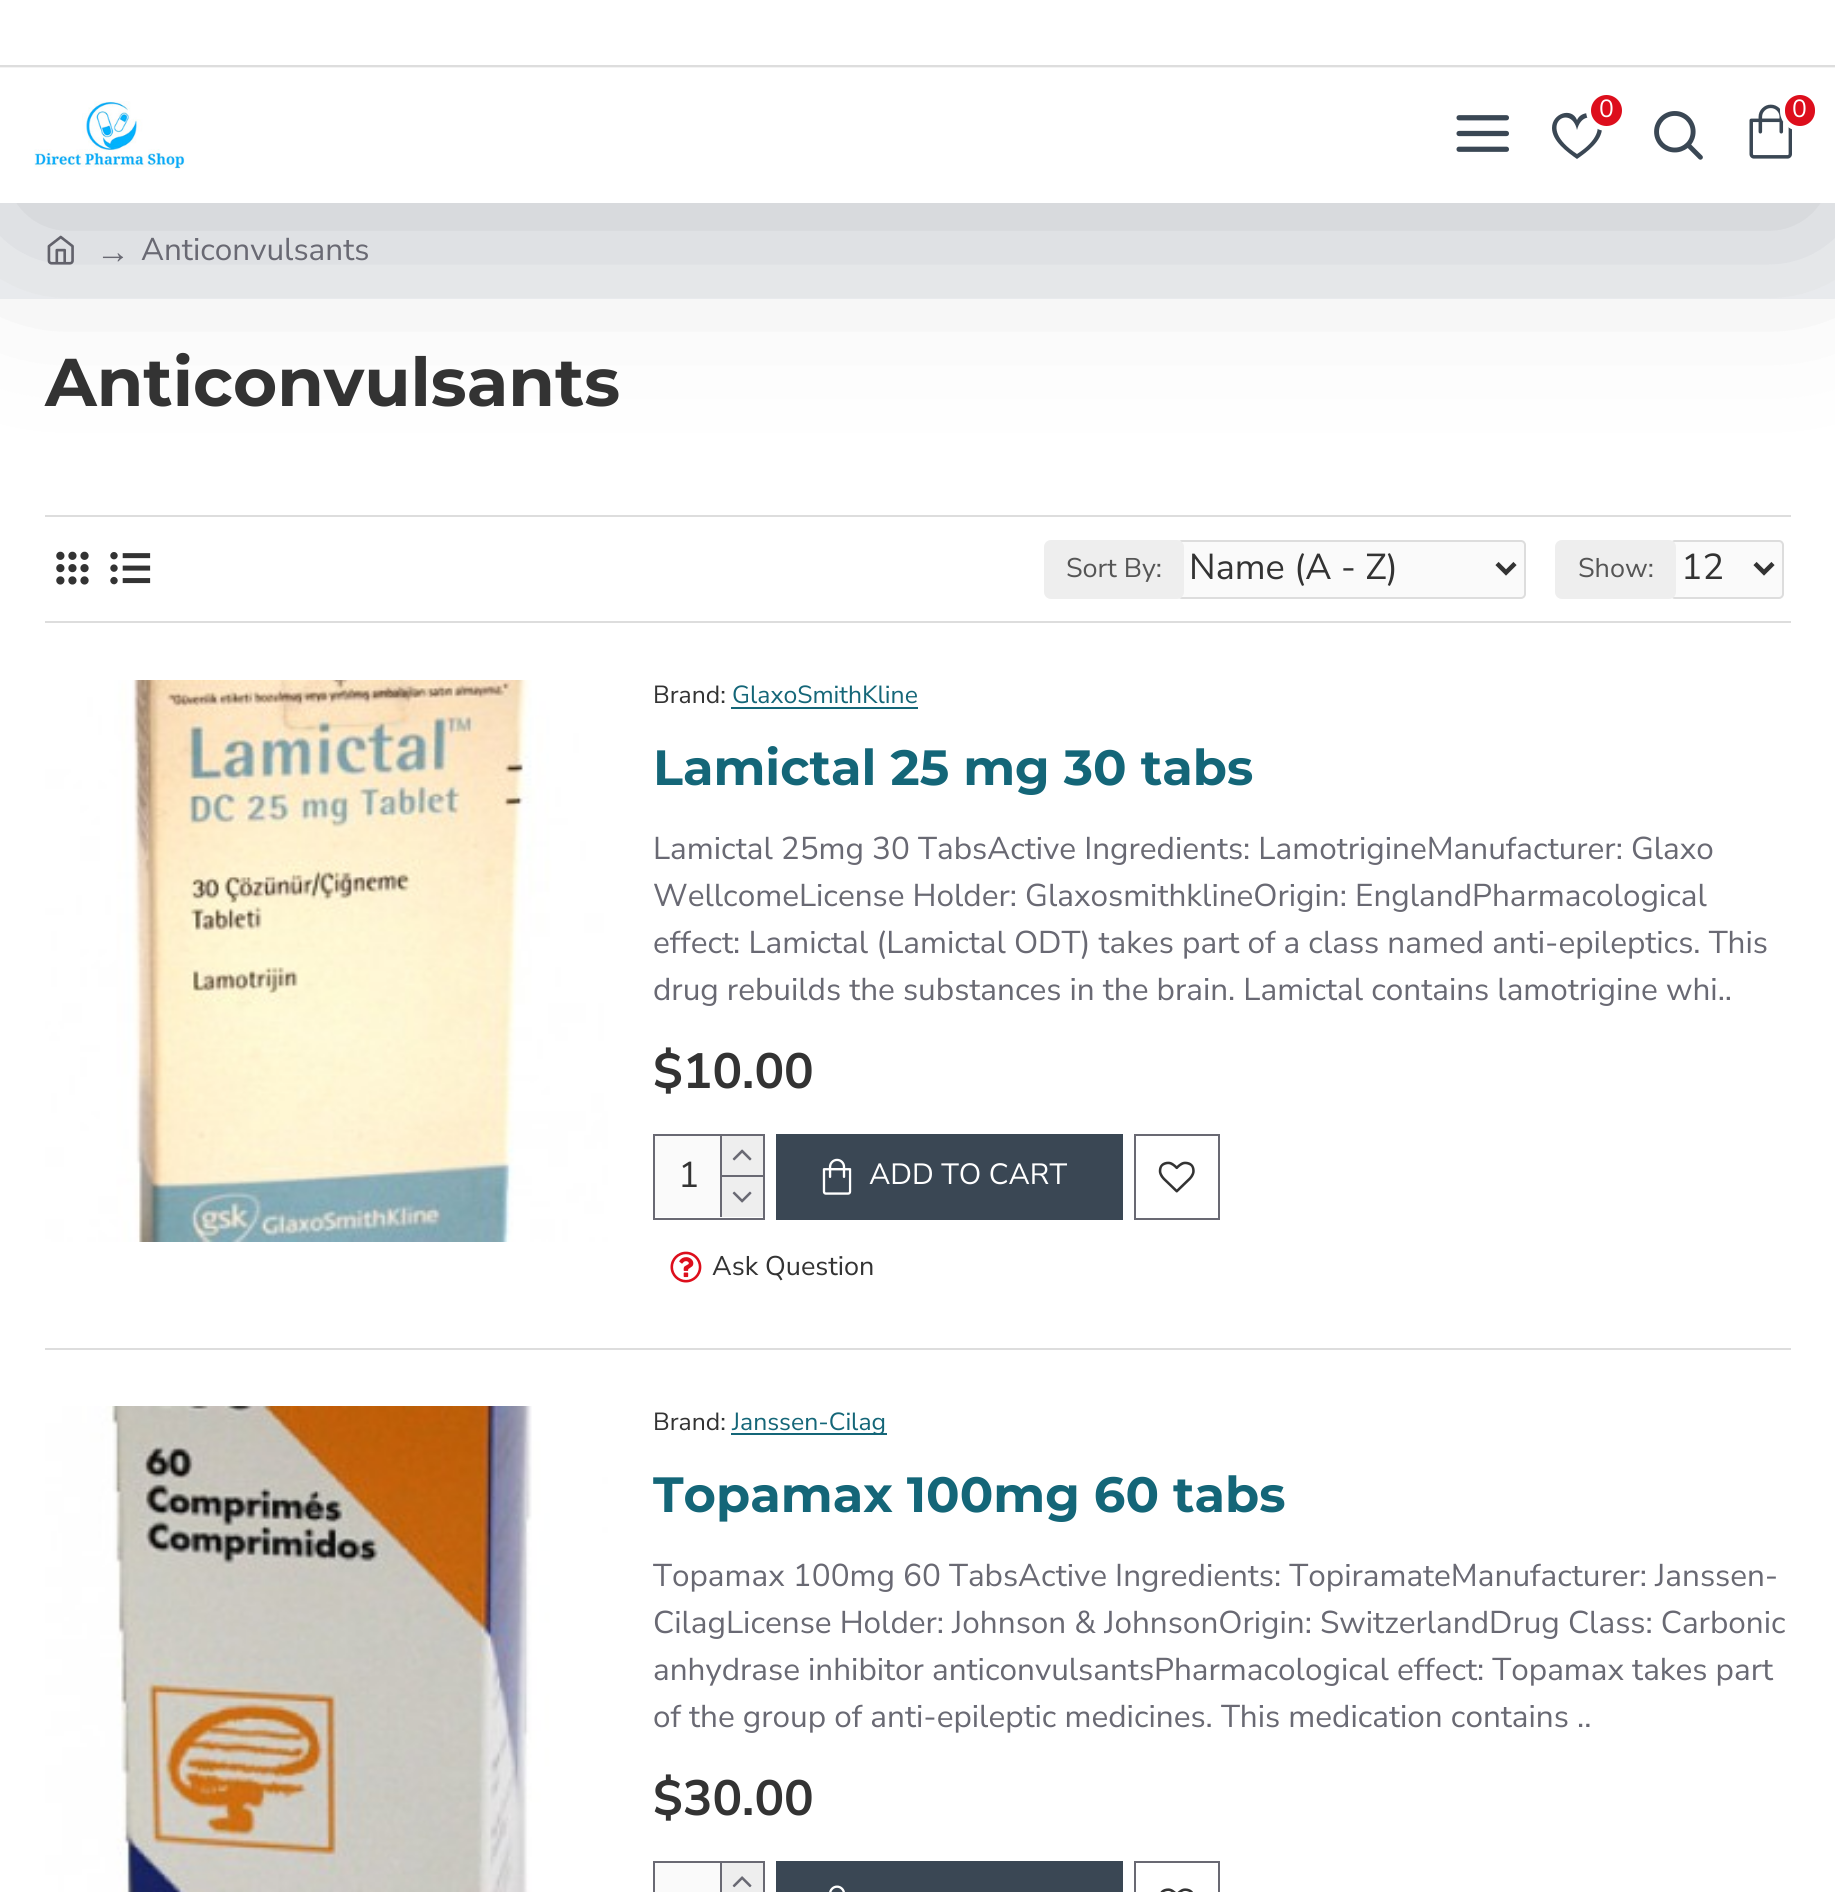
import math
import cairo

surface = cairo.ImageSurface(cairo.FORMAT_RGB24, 1835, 1892)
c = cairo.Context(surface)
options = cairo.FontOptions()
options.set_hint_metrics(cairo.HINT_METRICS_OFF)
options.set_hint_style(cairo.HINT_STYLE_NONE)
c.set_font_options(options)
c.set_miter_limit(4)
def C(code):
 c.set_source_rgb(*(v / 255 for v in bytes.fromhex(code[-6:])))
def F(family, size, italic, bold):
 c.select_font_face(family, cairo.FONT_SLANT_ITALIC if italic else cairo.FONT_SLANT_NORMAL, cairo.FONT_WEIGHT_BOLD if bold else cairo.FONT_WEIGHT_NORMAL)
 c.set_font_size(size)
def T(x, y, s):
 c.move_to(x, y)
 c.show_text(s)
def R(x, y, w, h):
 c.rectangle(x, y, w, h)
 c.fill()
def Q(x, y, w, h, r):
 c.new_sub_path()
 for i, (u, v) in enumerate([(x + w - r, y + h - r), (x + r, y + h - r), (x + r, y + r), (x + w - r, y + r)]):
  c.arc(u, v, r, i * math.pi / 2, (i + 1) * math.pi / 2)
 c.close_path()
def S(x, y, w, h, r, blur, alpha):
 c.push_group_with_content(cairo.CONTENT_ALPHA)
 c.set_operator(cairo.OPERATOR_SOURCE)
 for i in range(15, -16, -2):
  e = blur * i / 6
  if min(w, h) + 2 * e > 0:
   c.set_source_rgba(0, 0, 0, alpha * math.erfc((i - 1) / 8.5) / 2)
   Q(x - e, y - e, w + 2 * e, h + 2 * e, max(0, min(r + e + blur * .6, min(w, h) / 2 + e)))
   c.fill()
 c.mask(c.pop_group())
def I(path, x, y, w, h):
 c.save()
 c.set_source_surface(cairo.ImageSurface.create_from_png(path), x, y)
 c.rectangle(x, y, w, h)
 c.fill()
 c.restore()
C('ffffff')
c.paint()
C('f0f2f5')
R(0,203,1835,96)
I('5.png',47,235,27,30)
C('dddddd')
R(45,515,1746,2)
C('000000')
S(23,124,1791,90,0,101,.2)
C('ffffff')
R(0,0,1835,65)
C('dddddd')
R(0,65,1835,2)
C('ffffff')
R(0,68,1835,135)
I('1.png',34,101,151,68)
C('3a4754')
c.new_path()
c.move_to(1577,130)
c.curve_to(1584,102,1620,126,1577,154)
c.curve_to(1534,126,1571,102,1577,130)
c.close_path()
c.move_to(1552,128)
c.curve_to(1552,141,1567,152,1577,159)
c.curve_to(1587,152,1602,141,1602,128)
c.curve_to(1602,124,1601,121,1600,119)
c.curve_to(1594,111,1581,111,1577,120)
c.curve_to(1572,107,1552,113,1552,128)
c.close_path()
c.fill()
C('dd0e1c')
c.arc(1606.5,110.5,18,0,2 * math.pi)
c.fill_preserve()
C('ffffff')
c.set_line_width(5)
c.stroke()
F('Nunito Sans',24.75,0,0)
T(1599,117,'0')
I('2.png',1749,104,43,55)
C('dd0e1c')
Q(1782.5,92.5,35,36,17.5)
c.fill_preserve()
C('ffffff')
c.stroke()
T(1792,117,'0')
I('3.png',1456,115,53,37)
I('4.png',1654,111,49,49)
F('Liberation Serif',34,0,0)
C('696973')
T(96,263,'→')
F('Nunito Sans',31.5,0,0)
T(141,260,'Anticonvulsants')
F('Montserrat',67.5,0,1)
C('333333')
T(45,406,'Anticonvulsants')
C('dddddd')
R(45,621,1746,2)
I('6.png',56,551,33,34)
I('7.png',110,552,41,33)
C('fafafa')
Q(1178,541,347,57,4)
c.fill_preserve()
C('dddddd')
c.set_line_width(2)
c.stroke()
C('eeeeee')
Q(1044,540,140,59,7)
c.fill()
F('Nunito Sans',27,0,0)
C('555555')
T(1066,577,'Sort By:')
c.new_path()
c.move_to(1497,563.5)
c.line_to(1506,572.5)
c.line_to(1515,563.5)
C('333333')
c.set_line_width(4.5)
c.stroke()
F('Nunito Sans',36,0,0)
T(1189,579,'Name (A - Z)')
C('fafafa')
Q(1671,541,112,57,4)
c.fill_preserve()
C('dddddd')
c.set_line_width(2)
c.stroke()
C('eeeeee')
Q(1555,540,121,59,7)
c.fill()
F('Nunito Sans',27,0,0)
C('555555')
T(1578,577,'Show:')
c.new_path()
c.move_to(1755,563.5)
c.line_to(1764,572.5)
c.line_to(1773,563.5)
C('333333')
c.set_line_width(4.5)
c.stroke()
F('Nunito Sans',36,0,0)
T(1681,579,'12')
C('dddddd')
R(45,1348,1746,2)
I('8.png',45,680,563,562)
F('Nunito Sans',24.75,0,0)
C('333333')
T(653,703,'Brand:')
C('146678')
T(732,703,'GlaxoSmithKline')
R(731,707,187,2)
F('Montserrat',49.5,0,1)
T(653,785,'Lamictal 25 mg 30 tabs')
F('Nunito Sans',31.5,0,0)
C('696973')
T(653,859,'Lamictal 25mg 30 TabsActive Ingredients: LamotrigineManufacturer: Glaxo')
T(653,906,'WellcomeLicense Holder: GlaxosmithklineOrigin: EnglandPharmacological')
T(653,953,'effect: Lamictal (Lamictal ODT) takes part of a class named anti-epileptics. This')
T(653,1000,'drug rebuilds the substances in the brain. Lamictal contains lamotrigine whi..')
F('Nunito Sans',49.5,0,1)
C('333333')
T(653,1088,'$10.00')
c.rectangle(654,1135,110,84)
C('696973')
c.set_line_width(2)
c.stroke()
C('fafafa')
R(655,1136,65,81)
F('Nunito Sans',36,0,0)
C('333333')
T(678,1187,'1')
C('696973')
R(720,1136,2,81)
C('eeeeee')
R(722,1136,41,39)
C('696973')
R(722,1175,41,2)
I('9.png',732,1149,20,12)
C('eeeeee')
R(722,1177,41,40)
I('10.png',732,1191,20,12)
C('3a4754')
R(776,1134,347,86)
I('11.png',822,1158,30,37)
F('Nunito Sans',29.25,0,0)
C('ffffff')
T(869,1184,'ADD TO CART')
c.rectangle(1135,1135,84,84)
C('696973')
c.stroke()
I('12.png',1158,1161,37,32)
I('13.png',670,1251,32,32)
F('Nunito Sans',27,0,0)
C('333333')
T(712,1275,'Ask Question')
I('14.png',45,1406,563,486)
F('Nunito Sans',24.75,0,0)
T(653,1430,'Brand:')
C('146678')
R(731,1433,156,2)
T(732,1430,'Janssen-Cilag')
c.save()
c.rectangle(653,1465,632,65)
c.clip()
F('Montserrat',49.5,0,1)
T(653,1512,'Topamax 100mg 60 tabs')
c.restore()
F('Nunito Sans',31.5,0,0)
C('696973')
T(653,1586,'Topamax 100mg 60 TabsActive Ingredients: TopiramateManufacturer: Janssen-')
T(653,1633,'CilagLicense Holder: Johnson & JohnsonOrigin: SwitzerlandDrug Class: Carbonic')
T(653,1680,'anhydrase inhibitor anticonvulsantsPharmacological effect: Topamax takes part')
T(653,1727,'of the group of anti-epileptic medicines. This medication contains ..')
F('Nunito Sans',49.5,0,1)
C('333333')
T(653,1815,'$30.00')
c.rectangle(654,1862,110,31)
C('696973')
c.stroke()
C('fafafa')
R(655,1863,65,29)
C('696973')
R(720,1863,2,29)
C('eeeeee')
R(722,1863,41,29)
I('15.png',732,1876,20,12)
C('3a4754')
R(776,1861,347,31)
I('16.png',829,1885,16,7)
c.rectangle(1135,1862,84,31)
C('696973')
c.stroke()
I('17.png',1160,1888,33,4)
surface.write_to_png('o.png')
